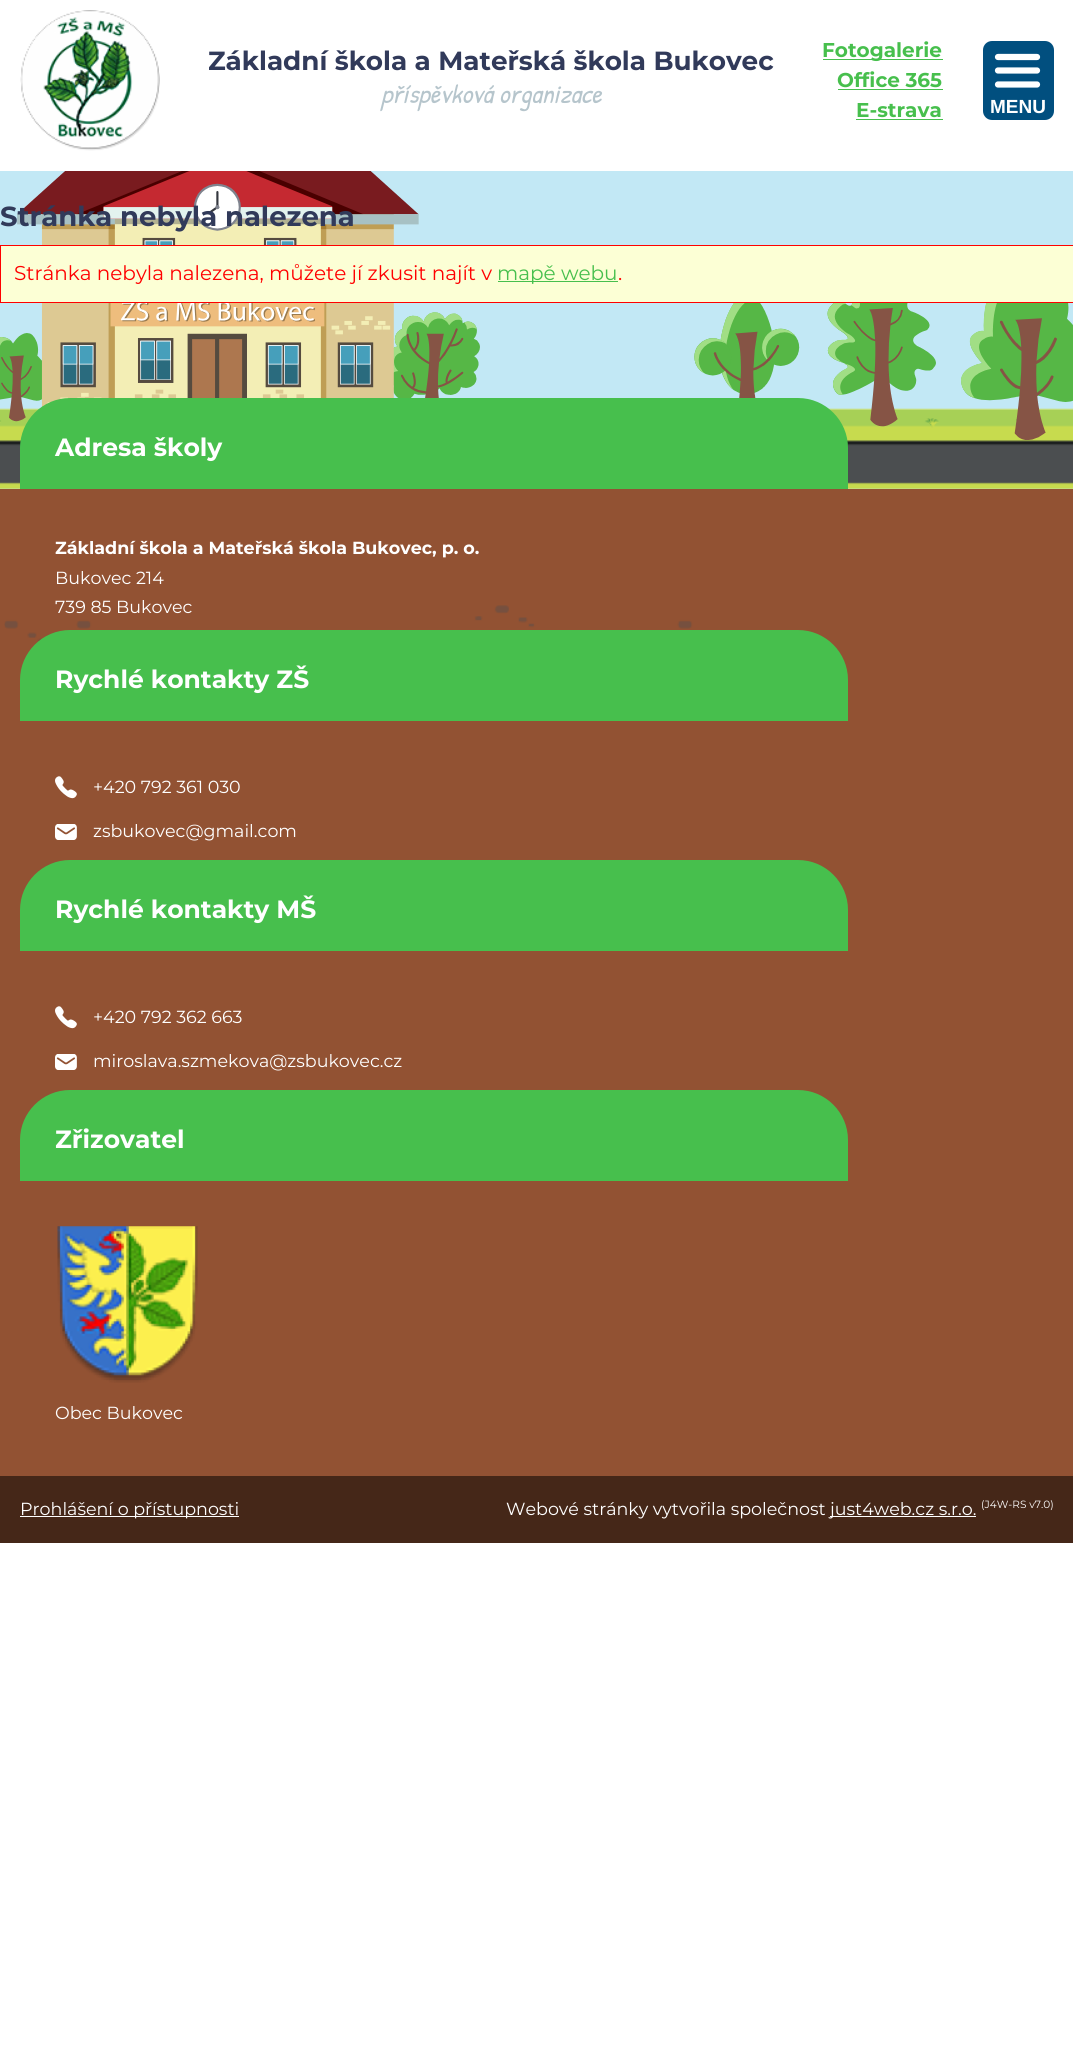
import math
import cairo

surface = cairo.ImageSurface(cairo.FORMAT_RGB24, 1073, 2060)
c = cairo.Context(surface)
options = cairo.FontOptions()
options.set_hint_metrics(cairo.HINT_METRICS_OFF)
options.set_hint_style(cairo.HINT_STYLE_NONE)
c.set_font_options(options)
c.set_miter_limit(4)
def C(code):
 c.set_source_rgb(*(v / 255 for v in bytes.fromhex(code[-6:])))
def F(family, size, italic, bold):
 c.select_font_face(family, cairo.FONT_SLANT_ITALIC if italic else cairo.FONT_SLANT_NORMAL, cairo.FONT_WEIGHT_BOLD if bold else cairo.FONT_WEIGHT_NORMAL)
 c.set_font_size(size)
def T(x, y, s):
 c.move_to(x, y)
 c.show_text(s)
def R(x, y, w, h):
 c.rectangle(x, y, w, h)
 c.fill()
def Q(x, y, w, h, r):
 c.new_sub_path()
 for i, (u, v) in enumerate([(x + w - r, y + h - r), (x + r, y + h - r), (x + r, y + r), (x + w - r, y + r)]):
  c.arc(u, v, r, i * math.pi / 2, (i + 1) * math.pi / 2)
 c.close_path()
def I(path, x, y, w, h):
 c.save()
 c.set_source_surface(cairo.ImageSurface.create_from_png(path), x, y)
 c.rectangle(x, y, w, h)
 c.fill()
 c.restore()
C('ffffff')
c.paint()
I('1.png',20,10,140,141)
F('Montserrat',26.25,0,1)
C('313a5a')
T(208,70,'Základní škola a Mateřská škola Bukovec')
F('Patrick Hand',26.25,1,0)
C('b6c5cc')
T(381,103,'příspěvková organizace')
C('47bf4d')
R(823,59,120,1)
F('Montserrat',20,0,1)
T(822,57,'Fotogalerie')
T(837,87,'Office 365')
R(838,89,105,1)
T(856,117,'E-strava')
R(856,119,87,1)
C('014f7f')
Q(983,41,71,79,9)
c.fill()
c.new_path()
c.move_to(998,84.5)
c.line_to(1037,84.5)
c.move_to(998,70.5)
c.line_to(1037,70.5)
c.move_to(998,57)
c.line_to(1037,57)
C('ffffff')
c.set_line_width(6.2)
c.set_line_cap(cairo.LINE_CAP_ROUND)
c.stroke()
F('Liberation Sans',19,0,1)
T(990,113,'MENU')
C('c2e8f5')
R(0,171,1073,318)
I('2.png',0,171,1073,318)
F('Montserrat',27.5,0,1)
C('313a5a')
T(0,226,'Stránka nebyla nalezena')
C('fcffd5')
c.rectangle(.5,245.5,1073,57)
c.fill_preserve()
C('ff0000')
c.set_line_width(1)
c.set_line_cap(cairo.LINE_CAP_BUTT)
c.stroke()
F('Montserrat',20,0,0)
T(14,280,'Stránka nebyla nalezena, můžete jí zkusit najít v')
C('47bf4d')
R(498,281,120,1)
T(497,280,'mapě webu')
C('ff0000')
T(618,280,'.')
C('925233')
R(0,489,1073,987)
I('3.png',4,605,714,38)
C('47bf4d')
c.new_path()
c.move_to(70,398)
c.line_to(798,398)
c.curve_to(825.5,398,848,420.5,848,448)
c.line_to(848,489)
c.line_to(20,489)
c.line_to(20,448)
c.curve_to(20,420.5,42.5,398,70,398)
c.close_path()
c.fill()
F('Montserrat',25,0,1)
C('ffffff')
T(55,456,'Adresa školy')
F('Montserrat',17.5,0,1)
T(55,554,'Základní škola a Mateřská škola Bukovec, p. o.')
F('Montserrat',17.5,0,0)
T(55,584,'Bukovec 214')
T(55,613,'739 85 Bukovec')
C('47bf4d')
c.new_path()
c.move_to(70,630)
c.line_to(798,630)
c.curve_to(825.5,630,848,652.5,848,680)
c.line_to(848,721)
c.line_to(20,721)
c.line_to(20,680)
c.curve_to(20,652.5,42.5,630,70,630)
c.close_path()
c.fill()
F('Montserrat',25,0,1)
C('ffffff')
T(55,688,'Rychlé kontakty ZŠ')
I('4.png',55,776,22,23)
F('Montserrat',17.5,0,0)
T(93,793,'+420 792 361 030')
I('5.png',55,824,22,16)
T(93,837,'zsbukovec@gmail.com')
C('47bf4d')
c.new_path()
c.move_to(70,860)
c.line_to(798,860)
c.curve_to(825.5,860,848,882.5,848,910)
c.line_to(848,951)
c.line_to(20,951)
c.line_to(20,910)
c.curve_to(20,882.5,42.5,860,70,860)
c.close_path()
c.fill()
F('Montserrat',25,0,1)
C('ffffff')
T(55,918,'Rychlé kontakty MŠ')
I('4.png',55,1006,22,23)
F('Montserrat',17.5,0,0)
T(93,1023,'+420 792 362 663')
I('5.png',55,1054,22,16)
T(93,1067,'miroslava.szmekova@zsbukovec.cz')
C('47bf4d')
c.new_path()
c.move_to(70,1090)
c.line_to(798,1090)
c.curve_to(825.5,1090,848,1112.5,848,1140)
c.line_to(848,1181)
c.line_to(20,1181)
c.line_to(20,1140)
c.curve_to(20,1112.5,42.5,1090,70,1090)
c.close_path()
c.fill()
F('Montserrat',25,0,1)
C('ffffff')
T(55,1148,'Zřizovatel')
I('6.png',57,1226,141,157)
F('Montserrat',17.5,0,0)
T(55,1419,'Obec Bukovec')
C('452718')
R(0,1476,1073,67)
C('ffffff')
R(20,1516,219,1)
T(20,1515,'Prohlášení o přístupnosti')
T(506,1515,'Webové stránky vytvořila společnost')
R(830,1516,146,1)
T(830,1515,'just4web.cz s.r.o.')
F('Montserrat',10.5,0,0)
T(981,1508,'(J4W-RS v7.0)')
surface.write_to_png('o.png')
